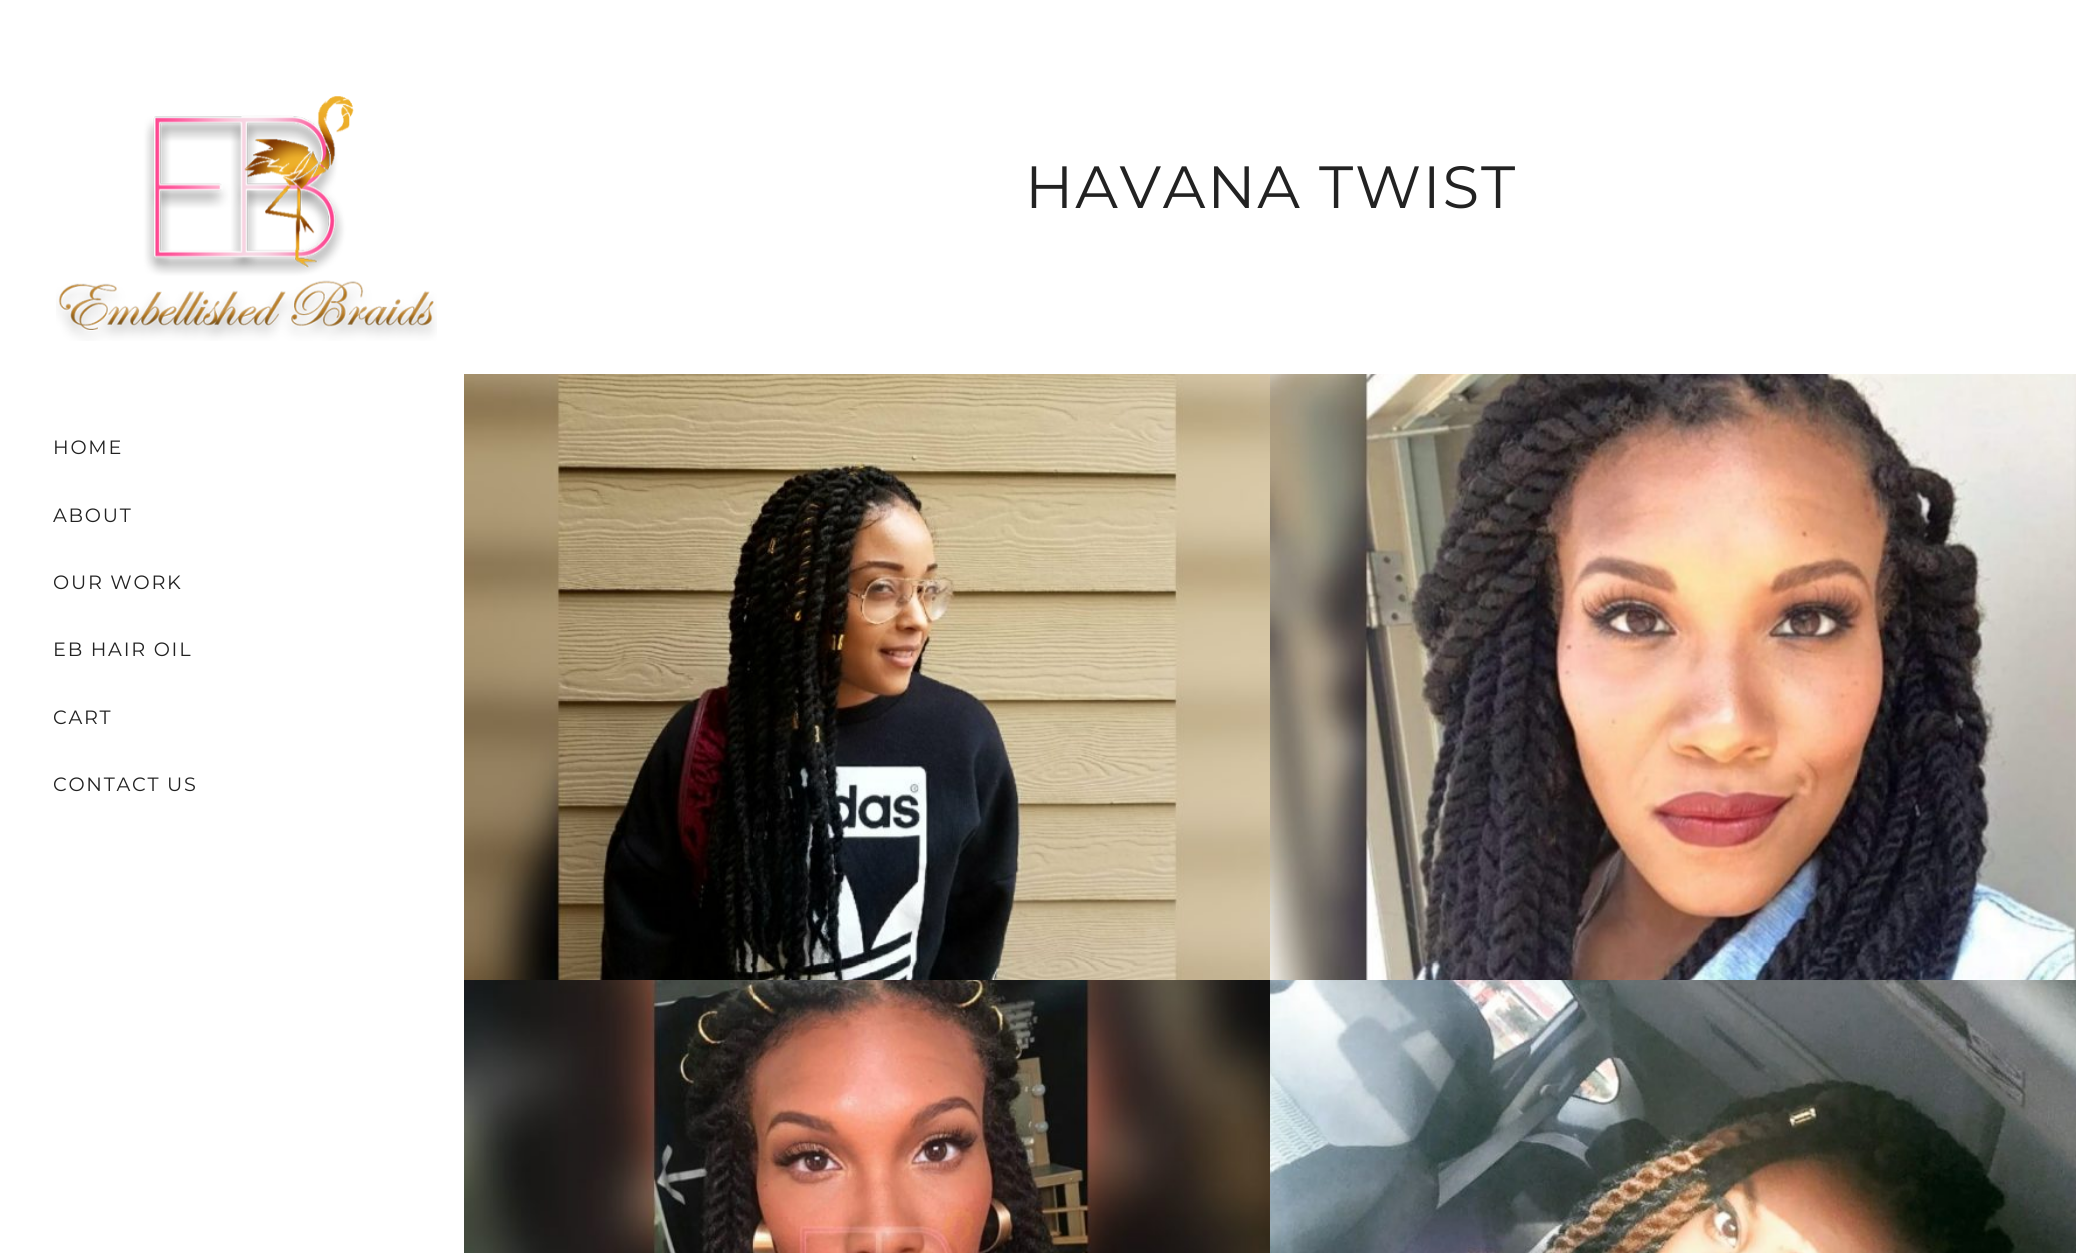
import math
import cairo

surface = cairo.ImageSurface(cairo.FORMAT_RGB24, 2076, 1253)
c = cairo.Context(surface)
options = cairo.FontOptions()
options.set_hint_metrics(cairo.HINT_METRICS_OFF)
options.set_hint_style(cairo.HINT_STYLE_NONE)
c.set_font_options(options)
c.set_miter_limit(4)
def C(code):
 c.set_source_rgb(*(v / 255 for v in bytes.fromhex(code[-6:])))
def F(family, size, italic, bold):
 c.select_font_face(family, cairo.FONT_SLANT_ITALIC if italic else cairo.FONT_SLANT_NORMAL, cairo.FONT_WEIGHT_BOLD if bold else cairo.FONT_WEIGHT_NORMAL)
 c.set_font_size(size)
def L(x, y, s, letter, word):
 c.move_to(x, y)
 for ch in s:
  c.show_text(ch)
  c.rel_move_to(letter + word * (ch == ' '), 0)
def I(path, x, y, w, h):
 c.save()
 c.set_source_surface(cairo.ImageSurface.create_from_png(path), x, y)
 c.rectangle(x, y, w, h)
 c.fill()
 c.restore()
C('ffffff')
c.paint()
F('Montserrat Thin',59.5,0,0)
C('222222')
L(1025,208,'HAVANA TWIST',1.75,0)
I('1.png',464,374,806,606)
I('2.png',1270,374,806,606)
I('3.png',464,980,806,273)
I('4.png',1270,980,806,273)
I('5.png',56,96,381,245)
F('Montserrat Thin',19.25,0,0)
L(53,454,'HOME',1.75,0)
L(53,522,'ABOUT',1.75,0)
L(53,589,'OUR WORK',1.75,0)
L(53,656,'EB HAIR OIL',1.75,0)
L(53,724,'CART',1.75,0)
L(53,791,'CONTACT US',1.75,0)
surface.write_to_png('o.png')
